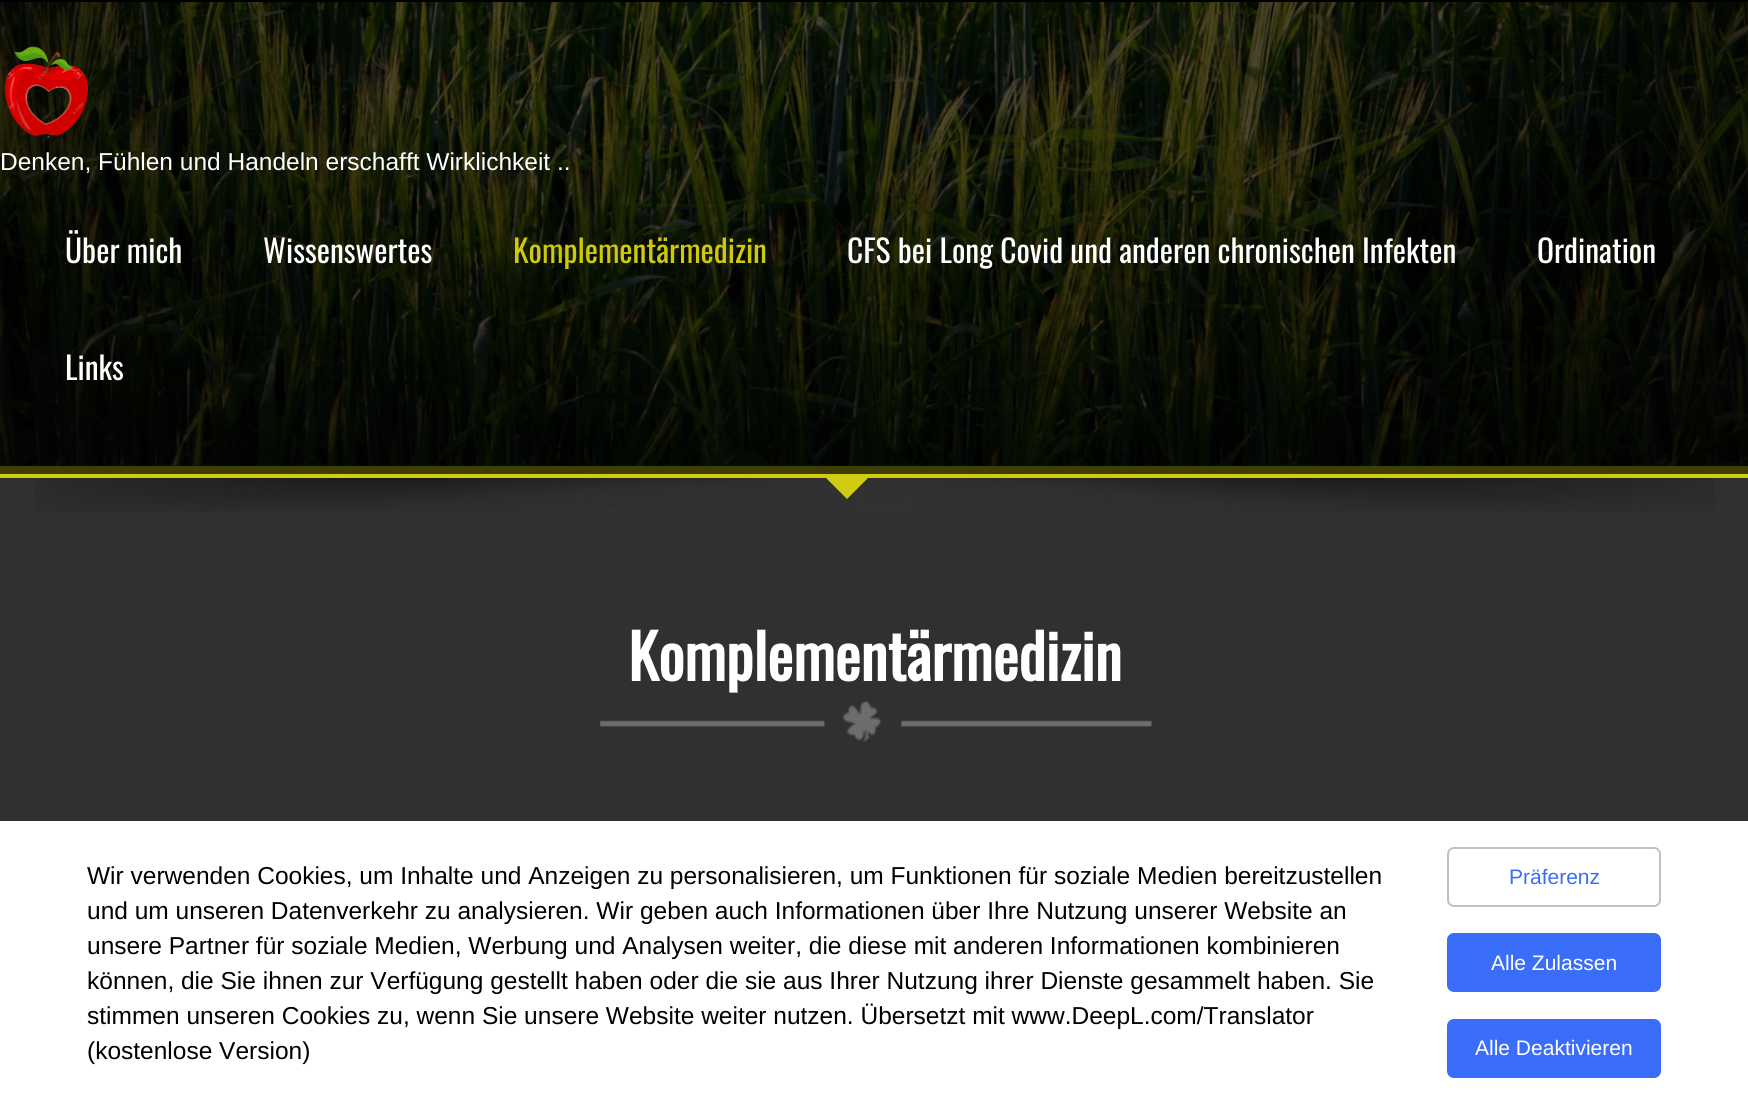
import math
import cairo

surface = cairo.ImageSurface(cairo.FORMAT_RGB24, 1748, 1104)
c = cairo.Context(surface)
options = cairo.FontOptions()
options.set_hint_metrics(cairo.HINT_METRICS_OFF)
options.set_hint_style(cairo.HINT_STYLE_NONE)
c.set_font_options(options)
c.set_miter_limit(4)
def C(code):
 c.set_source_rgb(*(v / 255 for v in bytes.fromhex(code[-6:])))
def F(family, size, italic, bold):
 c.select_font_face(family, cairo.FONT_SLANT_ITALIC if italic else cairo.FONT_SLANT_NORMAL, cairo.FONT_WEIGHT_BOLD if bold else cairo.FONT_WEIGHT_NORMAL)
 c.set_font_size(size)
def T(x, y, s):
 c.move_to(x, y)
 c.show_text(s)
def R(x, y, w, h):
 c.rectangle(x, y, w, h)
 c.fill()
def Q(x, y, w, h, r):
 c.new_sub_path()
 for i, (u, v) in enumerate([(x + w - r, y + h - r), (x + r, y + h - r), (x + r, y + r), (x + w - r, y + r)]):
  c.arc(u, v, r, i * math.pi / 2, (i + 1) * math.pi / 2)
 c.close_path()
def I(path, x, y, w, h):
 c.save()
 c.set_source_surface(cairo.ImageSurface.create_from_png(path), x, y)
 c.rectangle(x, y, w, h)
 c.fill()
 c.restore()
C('303030')
c.paint()
C('d1cb11')
R(0,466,1748,12)
I('1.png',0,2,1748,464)
I('3.png',35,478,1680,34)
c.new_path()
c.move_to(819,471)
c.line_to(875,471)
c.line_to(847,499)
c.close_path()
c.fill()
c.set_source_rgba(0,0,0,0.7)
R(0,2,1748,472)
C('000000')
R(0,0,1748,2)
I('2.png',4,46,84,92)
F('Liberation Sans',24.5,0,0)
C('ffffff')
T(0,170,'Denken, Fühlen und Handeln erschafft Wirklichkeit ..')
F('Oswald',31.5,0,0)
T(65,263,'Über mich')
T(263,263,'Wissenswertes')
C('d0c90b')
T(513,263,'Komplementärmedizin')
C('ffffff')
T(847,263,'CFS bei Long Covid und anderen chronischen Infekten')
T(1537,263,'Ordination')
T(65,380,'Links')
I('4.png',600,701,552,41)
F('Oswald',61.25,0,1)
T(628,681,'Komplementärmedizin')
R(0,821,1748,283)
F('Liberation Sans',24.5,0,0)
C('000000')
T(87,884,'Wir verwenden Cookies, um Inhalte und Anzeigen zu personalisieren, um Funktionen für soziale Medien bereitzustellen')
T(87,919,'und um unseren Datenverkehr zu analysieren. Wir geben auch Informationen über Ihre Nutzung unserer Website an')
T(87,954,'unsere Partner für soziale Medien, Werbung und Analysen weiter, die diese mit anderen Informationen kombinieren')
T(87,989,'können, die Sie ihnen zur Verfügung gestellt haben oder die sie aus Ihrer Nutzung ihrer Dienste gesammelt haben. Sie')
T(87,1024,'stimmen unseren Cookies zu, wenn Sie unsere Website weiter nutzen. Übersetzt mit www.DeepL.com/Translator')
T(87,1059,'(kostenlose Version)')
Q(1448,848,212,58,6)
C('c1c1c1')
c.stroke()
F('Liberation Sans',21,0,0)
C('3b6ef8')
T(1509,884,'Präferenz')
Q(1447,933,214,59,7)
c.fill()
C('ffffff')
T(1491,970,'Alle Zulassen')
C('3b6ef8')
Q(1447,1019,214,59,7)
c.fill()
C('ffffff')
T(1475,1055,'Alle Deaktivieren')
surface.write_to_png('o.png')
